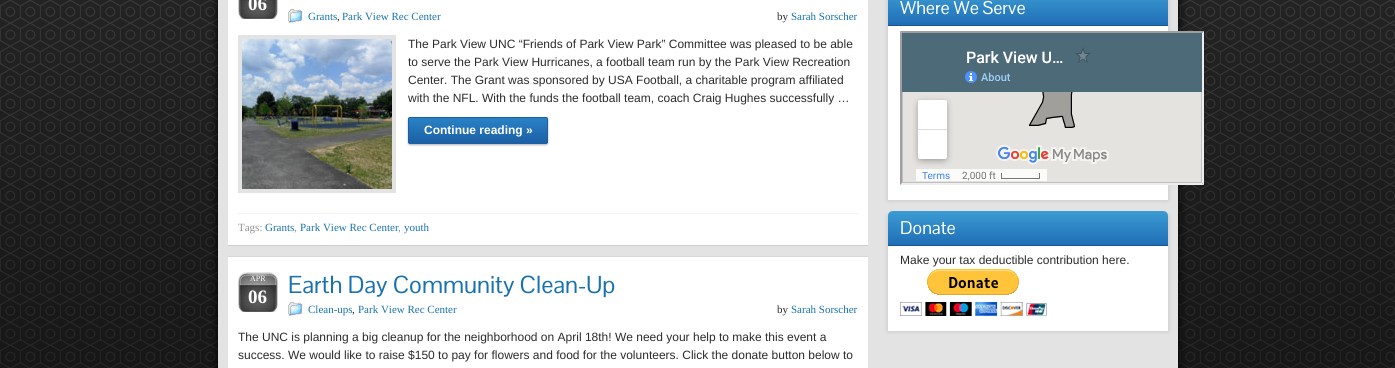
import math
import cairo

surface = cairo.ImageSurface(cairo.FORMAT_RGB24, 1395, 368)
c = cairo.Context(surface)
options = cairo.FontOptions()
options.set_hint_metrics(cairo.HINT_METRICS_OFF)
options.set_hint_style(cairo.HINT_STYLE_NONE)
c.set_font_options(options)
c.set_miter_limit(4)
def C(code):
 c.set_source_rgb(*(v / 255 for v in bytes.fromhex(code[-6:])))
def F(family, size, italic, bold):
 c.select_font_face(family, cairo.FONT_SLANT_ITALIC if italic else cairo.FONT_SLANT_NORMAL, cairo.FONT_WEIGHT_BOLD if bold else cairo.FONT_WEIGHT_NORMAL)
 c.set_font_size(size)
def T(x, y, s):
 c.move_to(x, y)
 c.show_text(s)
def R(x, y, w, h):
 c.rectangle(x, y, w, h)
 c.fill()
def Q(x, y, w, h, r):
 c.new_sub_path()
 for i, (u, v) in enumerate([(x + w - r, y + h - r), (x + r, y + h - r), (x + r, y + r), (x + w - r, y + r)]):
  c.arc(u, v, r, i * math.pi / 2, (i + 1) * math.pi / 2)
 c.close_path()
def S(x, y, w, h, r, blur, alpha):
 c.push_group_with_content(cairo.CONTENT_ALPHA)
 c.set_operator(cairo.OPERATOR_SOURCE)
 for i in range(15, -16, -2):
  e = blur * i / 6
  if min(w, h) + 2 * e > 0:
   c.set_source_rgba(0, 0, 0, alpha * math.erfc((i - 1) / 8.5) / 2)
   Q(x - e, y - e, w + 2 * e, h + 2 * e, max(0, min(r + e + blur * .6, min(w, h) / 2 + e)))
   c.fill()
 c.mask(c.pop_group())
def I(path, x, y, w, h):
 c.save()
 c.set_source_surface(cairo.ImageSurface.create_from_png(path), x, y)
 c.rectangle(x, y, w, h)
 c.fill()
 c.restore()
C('ffffff')
c.paint()
I('1.png',0,0,1395,368)
I('2.png',0,0,1395,368)
C('000000')
S(218,-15,960,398,0,5,1)
C('e3e3e3')
R(218,0,960,368)
C('ffffff')
R(228,0,640,245)
C('cccccc')
R(228,245,640,1)
I('3.png',238,0,40,19)
F('Liberation Serif',19,0,1)
C('ffffff')
T(248,10,'06')
I('4.png',288,9,15,14)
F('Liberation Serif',11,0,0)
C('1772af')
T(308,20,'Grants')
C('2c2b2b')
T(337,20,',')
C('1772af')
T(342,20,'Park View Rec Center')
C('2c2b2b')
T(777,20,'by')
C('1772af')
T(791,20,'Sarah Sorscher')
c.rectangle(240,37,154,154)
C('e3e3e3')
c.set_line_width(4)
c.stroke()
I('5.png',242,39,150,150)
F('Liberation Sans',12,0,0)
C('2c2b2b')
T(408,48,'The Park View UNC “Friends of Park View Park” Committee was pleased to be able')
T(408,66,'to serve the Park View Hurricanes, a football team run by the Park View Recreation')
T(408,84,'Center. The Grant was sponsored by USA Football, a charitable program affiliated')
T(408,102,'with the NFL. With the funds the football team, coach Craig Hughes successfully …')
C('000000')
S(408,118,140,27,2,1,.3)
c.save()
Q(408,117,140,27,2)
c.clip()
gradient = cairo.LinearGradient(478,118,478,143)
gradient.add_color_stop_rgba(0,0.161,0.51,0.773,1)
gradient.add_color_stop_rgba(1,0.11,0.373,0.647,1)
c.set_source(gradient)
R(408,118,140,25)
c.restore()
Q(408.5,117.5,139,26,1.5)
C('1c5fa5')
c.set_line_width(1)
c.stroke()
F('Liberation Sans',12,0,1)
C('ffffff')
T(424,134,'Continue reading »')
C('f5f5f5')
R(238,213,620,1)
F('Liberation Serif',11,0,0)
C('929292')
T(238,231,'Tags:')
C('1772af')
T(265,231,'Grants')
C('929292')
T(294,231,',')
C('1772af')
T(300,231,'Park View Rec Center')
C('929292')
T(398,231,',')
C('1772af')
T(404,231,'youth')
C('ffffff')
R(228,257,640,111)
C('d8d8d8')
R(228,256,640,1)
I('6.png',238,272,40,40)
F('Liberation Serif',8,0,0)
C('ffffff')
T(250,281,'APR')
F('Liberation Serif',19,0,1)
T(248,303,'06')
F('Pontano Sans',24,0,0)
C('1772af')
T(288,293,'Earth Day Community Clean-Up')
I('7.png',288,302,15,14)
F('Liberation Serif',11,0,0)
T(308,313,'Clean-ups')
C('2c2b2b')
T(352,313,',')
C('1772af')
T(358,313,'Park View Rec Center')
C('2c2b2b')
T(777,313,'by')
C('1772af')
T(791,313,'Sarah Sorscher')
F('Liberation Sans',12,0,0)
C('2c2b2b')
T(238,341,'The UNC is planning a big cleanup for the neighborhood on April 18th! We need your help to make this event a')
T(238,359,'success. We would like to raise $150 to pay for flowers and food for the volunteers. Click the donate button below to')
C('000000')
S(888,-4,280,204,0,2.5,.15)
C('ffffff')
R(888,26,280,174)
gradient = cairo.LinearGradient(1028,-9,1028,25)
gradient.add_color_stop_rgba(0,0.235,0.612,0.824,1)
gradient.add_color_stop_rgba(1,0.122,0.431,0.714,1)
c.set_source(gradient)
R(888,0,280,25)
C('195392')
R(888,25,280,1)
F('Pontano Sans',18,0,0)
C('ffffff')
T(900,14,'Where We Serve')
C('9f9f9f')
c.new_path()
c.move_to(900,31)
c.line_to(1204,31)
c.line_to(1202,33)
c.line_to(902,33)
c.close_path()
c.fill()
C('eeeeee')
c.new_path()
c.move_to(1204,31)
c.line_to(1204,185)
c.line_to(1202,183)
c.line_to(1202,33)
c.close_path()
c.fill()
c.new_path()
c.move_to(1204,185)
c.line_to(900,185)
c.line_to(902,183)
c.line_to(1202,183)
c.close_path()
c.fill()
C('9f9f9f')
c.new_path()
c.move_to(900,185)
c.line_to(900,31)
c.line_to(902,33)
c.line_to(902,183)
c.close_path()
c.fill()
I('8.png',902,33,300,150)
C('000000')
S(888,216,280,115,0,2.5,.15)
C('ffffff')
R(888,246,280,85)
gradient = cairo.LinearGradient(1028,211,1028,245)
gradient.add_color_stop_rgba(0,0.235,0.612,0.824,1)
gradient.add_color_stop_rgba(1,0.122,0.431,0.714,1)
c.set_source(gradient)
c.new_path()
c.move_to(893,211)
c.line_to(1163,211)
c.curve_to(1166,211,1168,213,1168,216)
c.line_to(1168,245)
c.line_to(888,245)
c.line_to(888,216)
c.curve_to(888,213,890,211,893,211)
c.close_path()
c.fill()
C('195392')
R(888,245,280,1)
C('ffffff')
T(900,234,'Donate')
F('Liberation Sans',12,0,0)
C('2c2b2b')
T(900,264,'Make your tax deductible contribution here.')
I('9.png',900,269,147,47)
surface.write_to_png('o.png')
